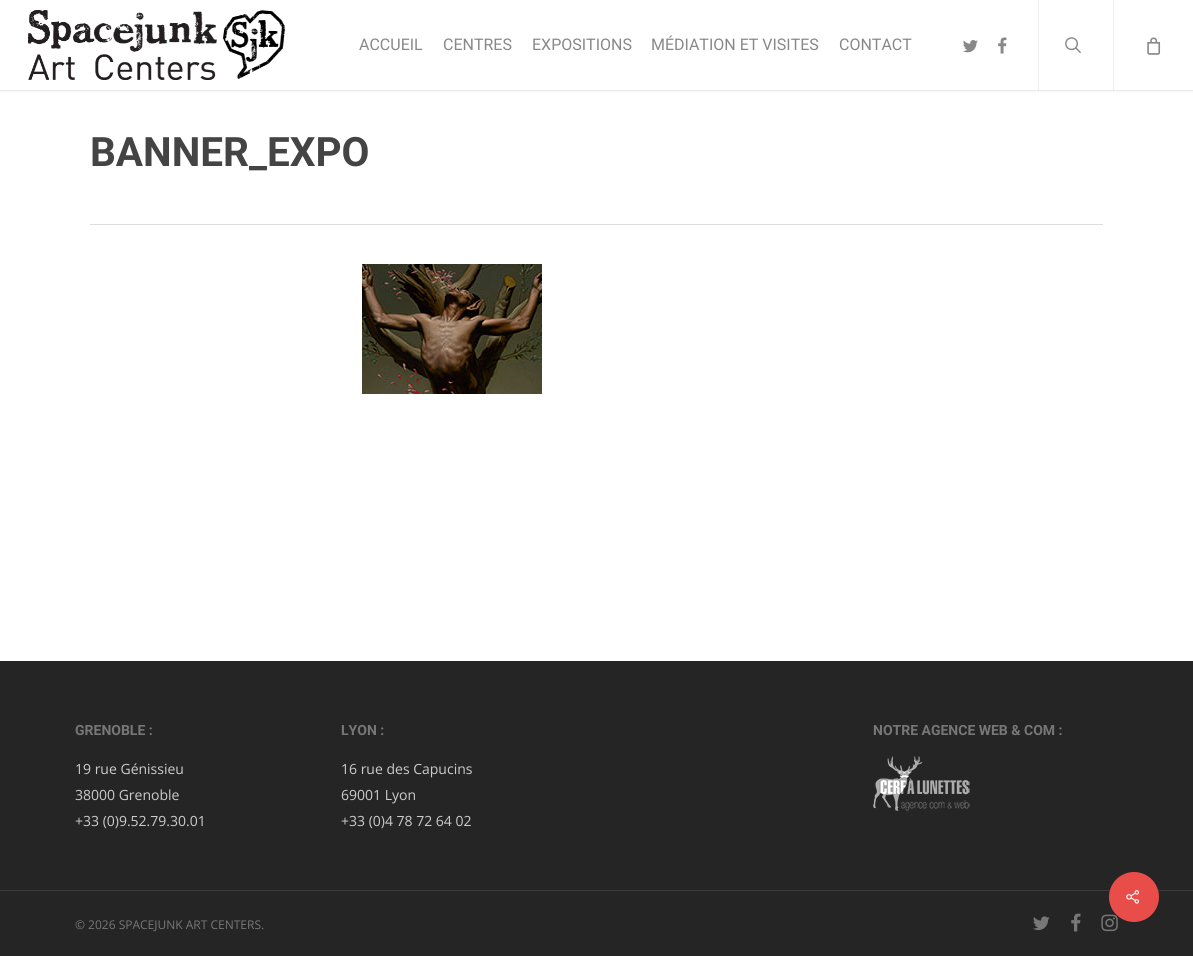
import math
import cairo

surface = cairo.ImageSurface(cairo.FORMAT_RGB24, 1193, 956)
c = cairo.Context(surface)
options = cairo.FontOptions()
options.set_hint_metrics(cairo.HINT_METRICS_OFF)
options.set_hint_style(cairo.HINT_STYLE_NONE)
c.set_font_options(options)
c.set_miter_limit(4)
def C(code):
 c.set_source_rgb(*(v / 255 for v in bytes.fromhex(code[-6:])))
def F(family, size, italic, bold):
 c.select_font_face(family, cairo.FONT_SLANT_ITALIC if italic else cairo.FONT_SLANT_NORMAL, cairo.FONT_WEIGHT_BOLD if bold else cairo.FONT_WEIGHT_NORMAL)
 c.set_font_size(size)
def T(x, y, s):
 c.move_to(x, y)
 c.show_text(s)
def R(x, y, w, h):
 c.rectangle(x, y, w, h)
 c.fill()
def Q(x, y, w, h, r):
 c.new_sub_path()
 for i, (u, v) in enumerate([(x + w - r, y + h - r), (x + r, y + h - r), (x + r, y + r), (x + w - r, y + r)]):
  c.arc(u, v, r, i * math.pi / 2, (i + 1) * math.pi / 2)
 c.close_path()
def S(x, y, w, h, r, blur, alpha):
 c.push_group_with_content(cairo.CONTENT_ALPHA)
 c.set_operator(cairo.OPERATOR_SOURCE)
 for i in range(15, -16, -2):
  e = blur * i / 6
  if min(w, h) + 2 * e > 0:
   c.set_source_rgba(0, 0, 0, alpha * math.erfc((i - 1) / 8.5) / 2)
   Q(x - e, y - e, w + 2 * e, h + 2 * e, max(0, min(r + e + blur * .6, min(w, h) / 2 + e)))
   c.fill()
 c.mask(c.pop_group())
def I(path, x, y, w, h):
 c.save()
 c.set_source_surface(cairo.ImageSurface.create_from_png(path), x, y)
 c.rectangle(x, y, w, h)
 c.fill()
 c.restore()
C('ffffff')
c.paint()
c.save()
c.rectangle(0,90,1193,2)
c.clip()
C('000000')
S(0,0,1193,90,0,1.5,.22)
c.restore()
I('1.png',28,10,257,70)
F('Roboto',16,0,0)
C('888888')
T(359,50,'ACCUEIL')
T(443,50,'CENTRES')
T(532,50,'EXPOSITIONS')
T(651,50,'MÉDIATION ET VISITES')
T(839,50,'CONTACT')
I('2.png',963,40,15,13)
I('3.png',998,37,9,17)
C('ededed')
R(1038,0,1,90)
I('4.png',1065,37,16,16)
R(1113,0,1,90)
I('5.png',1147,37,14,18)
C('dddddd')
R(90,224,1013,1)
F('Roboto',40.5,0,1)
C('444444')
T(90,166,'BANNER_EXPO')
I('6.png',362,264,180,130)
C('252525')
R(0,661,1193,295)
F('Roboto',14,0,1)
C('777777')
T(75,735,'GRENOBLE :')
F('Open Sans',14,0,0)
C('cccccc')
T(75,774,'19 rue Génissieu')
T(75,800,'38000 Grenoble')
T(75,826,'+33 (0)9.52.79.30.01')
F('Roboto',14,0,1)
C('777777')
T(341,735,'LYON :')
F('Open Sans',14,0,0)
C('cccccc')
T(341,774,'16 rue des Capucins')
T(341,800,'69001 Lyon')
T(341,826,'+33 (0)4 78 72 64 02')
F('Roboto',14,0,1)
C('777777')
T(873,735,'NOTRE AGENCE WEB & COM :')
I('7.png',873,756,97,55)
C('3b3b3b')
R(0,890,1193,1)
F('Open Sans',12,0,0)
C('777777')
T(75,929,'© 2026 SPACEJUNK ART CENTERS.')
I('8.png',1033,916,17,15)
I('9.png',1071,913,10,19)
I('10.png',1101,914,17,18)
C('e84d49')
c.arc(1134,897,25,0,2 * math.pi)
c.fill()
I('11.png',1126,890,13,14)
surface.write_to_png('o.png')
